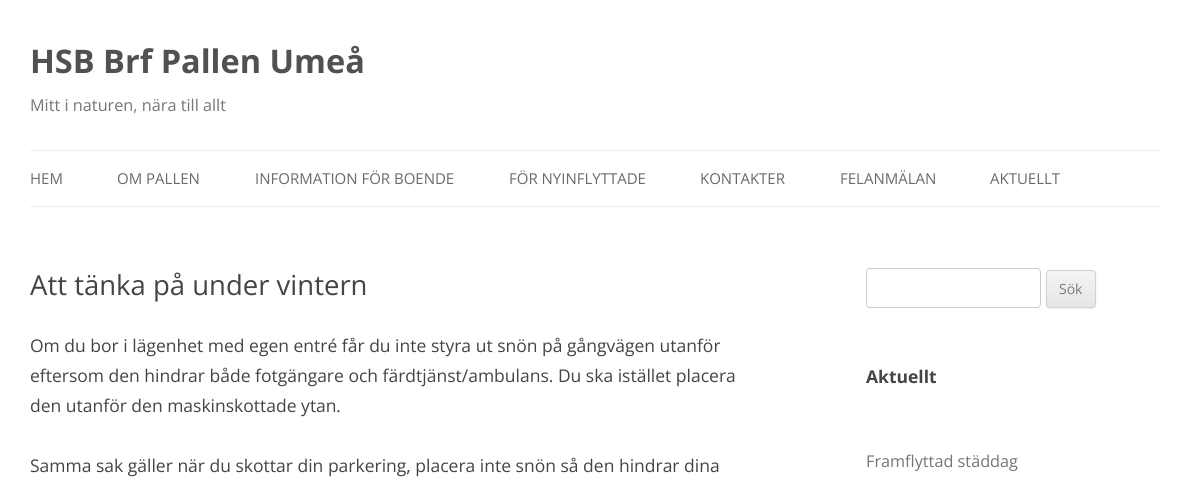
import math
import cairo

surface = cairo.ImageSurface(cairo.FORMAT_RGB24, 1189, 481)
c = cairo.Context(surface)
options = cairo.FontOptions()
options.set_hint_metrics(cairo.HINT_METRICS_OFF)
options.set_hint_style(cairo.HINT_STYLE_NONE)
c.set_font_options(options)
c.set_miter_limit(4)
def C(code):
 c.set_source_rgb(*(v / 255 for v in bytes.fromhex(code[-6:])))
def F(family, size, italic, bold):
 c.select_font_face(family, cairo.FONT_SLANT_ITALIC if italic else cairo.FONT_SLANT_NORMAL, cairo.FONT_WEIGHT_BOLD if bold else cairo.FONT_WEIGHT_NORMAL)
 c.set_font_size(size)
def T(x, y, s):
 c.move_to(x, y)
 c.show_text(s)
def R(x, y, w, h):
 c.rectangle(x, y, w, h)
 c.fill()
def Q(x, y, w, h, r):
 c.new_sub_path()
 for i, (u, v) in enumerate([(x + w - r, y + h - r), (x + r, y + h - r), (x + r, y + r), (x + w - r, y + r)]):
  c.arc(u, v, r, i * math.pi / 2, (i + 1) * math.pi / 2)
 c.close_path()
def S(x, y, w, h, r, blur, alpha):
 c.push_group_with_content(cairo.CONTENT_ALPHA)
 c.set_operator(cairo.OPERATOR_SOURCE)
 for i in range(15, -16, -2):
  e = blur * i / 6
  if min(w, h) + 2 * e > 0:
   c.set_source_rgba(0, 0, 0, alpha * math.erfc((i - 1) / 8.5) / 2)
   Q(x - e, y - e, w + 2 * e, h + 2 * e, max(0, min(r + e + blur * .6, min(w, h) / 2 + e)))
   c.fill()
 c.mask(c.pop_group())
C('ffffff')
c.paint()
F('Open Sans',32.5,0,1)
C('515151')
T(30,73,'HSB Brf Pallen Umeå')
F('Open Sans',16.25,0,0)
C('757575')
T(30,111,'Mitt i naturen, nära till allt')
C('ededed')
R(30,150,1130,1)
R(30,206,1130,1)
F('Open Sans',15,0,0)
C('6a6a6a')
T(30,184,'HEM')
T(117,184,'OM PALLEN')
T(255,184,'INFORMATION FÖR BOENDE')
T(509,184,'FÖR NYINFLYTTADE')
T(700,184,'KONTAKTER')
T(840,184,'FELANMÄLAN')
T(990,184,'AKTUELLT')
F('Open Sans',27.5,0,0)
C('444444')
T(30,295,'Att tänka på under vintern')
F('Open Sans',17.5,0,0)
T(30,352,'Om du bor i lägenhet med egen entré får du inte styra ut snön på gångvägen utanför')
T(30,382,'eftersom den hindrar både fotgängare och färdtjänst/ambulans. Du ska istället placera')
T(30,412,'den utanför den maskinskottade ytan')
F('Open Sans',17.5,1,0)
T(337,412,'.')
F('Open Sans',17.5,0,0)
T(30,472,'Samma sak gäller när du skottar din parkering, placera inte snön så den hindrar dina')
Q(866.5,268.5,174,39,3.5)
C('cccccc')
c.set_line_width(1)
c.stroke()
C('404040')
S(1046,271,50,38,4,1,.1)
C('e6e6e6')
Q(1046,270,50,38,4)
c.fill()
c.save()
Q(1046,270,50,38,4)
c.clip()
gradient = cairo.LinearGradient(1071,271,1071,306)
gradient.add_color_stop_rgba(0,0.957,0.957,0.957,1)
gradient.add_color_stop_rgba(1,0.902,0.902,0.902,1)
c.set_source(gradient)
R(1046,271,50,35)
c.restore()
Q(1046.5,270.5,49,37,3.5)
C('d2d2d2')
c.stroke()
F('Open Sans',14,0,0)
C('7c7c7c')
T(1059,294,'Sök')
F('Open Sans',17.5,0,1)
C('444444')
T(866,383,'Aktuellt')
F('Open Sans',16.25,0,0)
C('757575')
T(866,467,'Framflyttad städdag')
surface.write_to_png('o.png')
